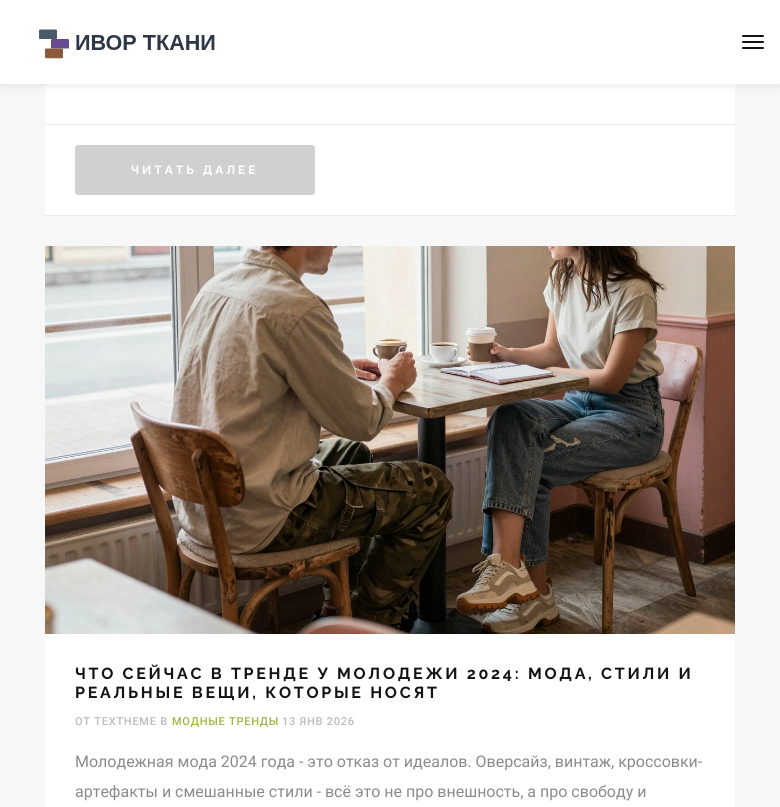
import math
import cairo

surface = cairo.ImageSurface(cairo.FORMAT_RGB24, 780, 807)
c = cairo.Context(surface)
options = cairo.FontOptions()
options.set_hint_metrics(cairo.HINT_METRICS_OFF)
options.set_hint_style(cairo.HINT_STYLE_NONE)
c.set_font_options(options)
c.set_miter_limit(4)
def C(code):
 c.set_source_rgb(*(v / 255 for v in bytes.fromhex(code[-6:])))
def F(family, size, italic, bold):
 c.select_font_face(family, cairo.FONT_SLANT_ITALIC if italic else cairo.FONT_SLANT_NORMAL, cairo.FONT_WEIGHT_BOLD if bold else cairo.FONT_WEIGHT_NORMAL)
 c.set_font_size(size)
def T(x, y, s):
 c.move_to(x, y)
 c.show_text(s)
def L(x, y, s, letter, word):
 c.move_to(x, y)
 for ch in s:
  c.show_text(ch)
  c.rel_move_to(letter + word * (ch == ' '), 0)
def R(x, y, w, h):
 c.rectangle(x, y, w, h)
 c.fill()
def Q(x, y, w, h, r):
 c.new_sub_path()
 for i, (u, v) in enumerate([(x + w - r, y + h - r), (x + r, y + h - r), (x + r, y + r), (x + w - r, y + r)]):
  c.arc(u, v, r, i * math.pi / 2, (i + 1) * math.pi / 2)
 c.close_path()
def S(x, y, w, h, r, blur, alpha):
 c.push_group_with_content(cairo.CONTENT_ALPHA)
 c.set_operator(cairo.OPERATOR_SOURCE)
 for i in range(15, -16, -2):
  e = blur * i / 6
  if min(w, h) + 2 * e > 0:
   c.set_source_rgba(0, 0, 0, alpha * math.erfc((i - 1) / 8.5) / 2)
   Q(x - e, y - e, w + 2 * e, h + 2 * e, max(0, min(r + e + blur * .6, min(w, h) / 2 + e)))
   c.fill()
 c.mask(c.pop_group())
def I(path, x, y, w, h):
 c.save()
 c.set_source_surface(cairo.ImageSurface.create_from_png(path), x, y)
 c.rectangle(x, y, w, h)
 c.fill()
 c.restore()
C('f7f7f7')
c.paint()
C('ffffff')
R(45,84,690,131)
C('0c002e')
S(0,4,780,84,0,3,.06)
C('ffffff')
R(0,0,780,84)
I('1.png',39,29,176,30)
C('131313')
Q(742,35,22,2,1)
c.fill()
Q(742,41,22,2,1)
c.fill()
Q(742,47,22,2,1)
c.fill()
C('eaeaea')
R(45,124,690,1)
R(45,215,690,1)
C('d0d0d0')
Q(75,145,240,50,3)
c.fill()
F('Raleway',12,0,1)
C('ffffff')
L(131,174,'ЧИТАТЬ ДАЛЕЕ',3,0)
R(45,634,690,173)
I('2.png',45,246,690,388)
F('Raleway',16,0,1)
C('131313')
L(75,679,'ЧТО СЕЙЧАС В ТРЕНДЕ У МОЛОДЕЖИ 2024: МОДА, СТИЛИ И',2.72,0)
L(75,698,'РЕАЛЬНЫЕ ВЕЩИ, КОТОРЫЕ НОСЯТ',2.72,0)
F('Roboto Medium',11,0,0)
C('bbbbbb')
L(75,725,'ОТ TEXTHEME В',.75,0)
C('a1b541')
L(172,725,'МОДНЫЕ ТРЕНДЫ',.75,0)
C('bbbbbb')
L(282,725,'13 ЯНВ 2026',.75,0)
F('Roboto',16,0,0)
C('8b8b8b')
T(75,767,'Молодежная мода 2024 года - это отказ от идеалов. Оверсайз, винтаж, кроссовки-')
T(75,797,'артефакты и смешанные стили - всё это не про внешность, а про свободу и')
surface.write_to_png('o.png')
